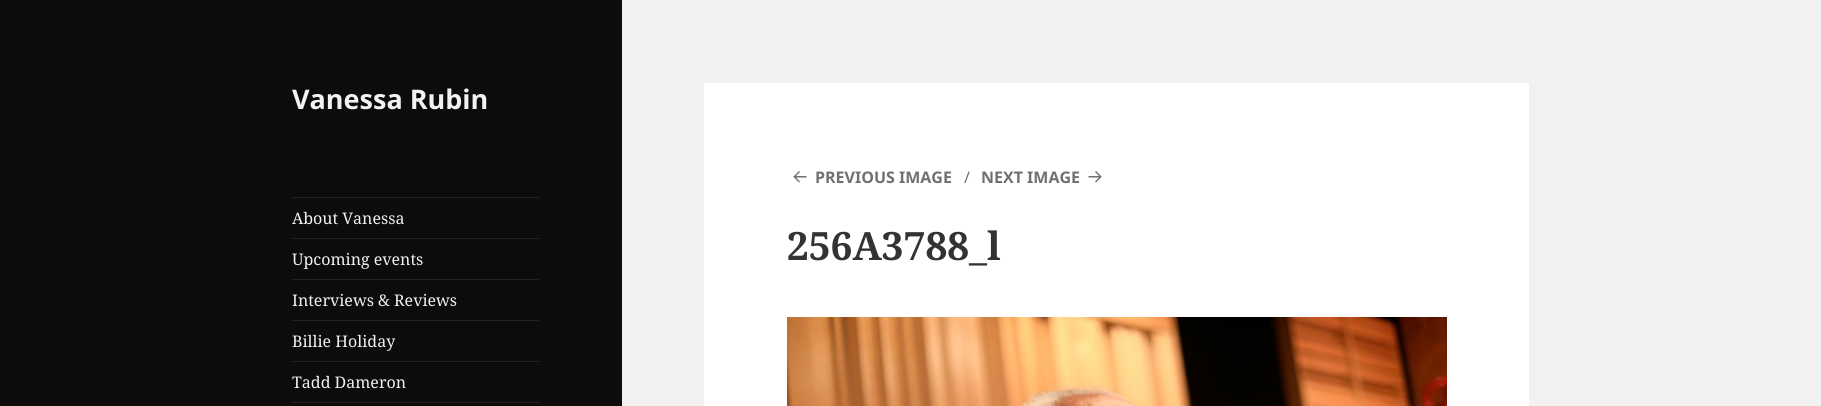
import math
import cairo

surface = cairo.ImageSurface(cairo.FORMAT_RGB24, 1821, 406)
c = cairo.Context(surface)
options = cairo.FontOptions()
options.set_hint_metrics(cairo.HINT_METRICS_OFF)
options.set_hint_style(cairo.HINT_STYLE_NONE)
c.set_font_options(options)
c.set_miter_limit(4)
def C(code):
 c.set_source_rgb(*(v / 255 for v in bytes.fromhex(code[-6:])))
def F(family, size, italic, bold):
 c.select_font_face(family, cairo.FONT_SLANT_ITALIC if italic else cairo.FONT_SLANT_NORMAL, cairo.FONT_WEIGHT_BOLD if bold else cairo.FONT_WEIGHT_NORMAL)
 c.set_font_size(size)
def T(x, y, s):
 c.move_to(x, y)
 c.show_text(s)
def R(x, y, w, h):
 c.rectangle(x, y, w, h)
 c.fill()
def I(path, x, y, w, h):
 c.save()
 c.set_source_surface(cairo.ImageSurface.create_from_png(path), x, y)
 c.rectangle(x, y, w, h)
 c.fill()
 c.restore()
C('f1f1f1')
c.paint()
C('0c0c0c')
R(0,0,622,406)
F('Noto Sans',27,0,1)
C('f2f2f2')
T(292,109,'Vanessa Rubin')
C('232323')
R(292,197,247,1)
F('Noto Serif',16,0,0)
C('f2f2f2')
T(292,224,'About Vanessa')
C('232323')
R(292,238,247,1)
C('f2f2f2')
T(292,265,'Upcoming events')
C('232323')
R(292,279,247,1)
C('f2f2f2')
T(292,306,'Interviews & Reviews')
C('232323')
R(292,320,247,1)
C('f2f2f2')
T(292,347,'Billie Holiday')
C('232323')
R(292,361,247,1)
C('f2f2f2')
T(292,388,'Tadd Dameron')
C('232323')
R(292,402,247,1)
C('ffffff')
R(704,83,825,323)
I('1.png',793,171,14,12)
F('Noto Sans',16,0,1)
C('707070')
T(815,183,'PREVIOUS IMAGE')
F('Noto Sans',16,0,0)
T(964,183,'∕')
F('Noto Sans',16,0,1)
T(981,183,'NEXT IMAGE')
I('2.png',1088,171,14,12)
F('Noto Serif',39,0,1)
C('333333')
T(787,260,'256A3788_l')
I('3.png',787,317,660,89)
surface.write_to_png('o.png')
